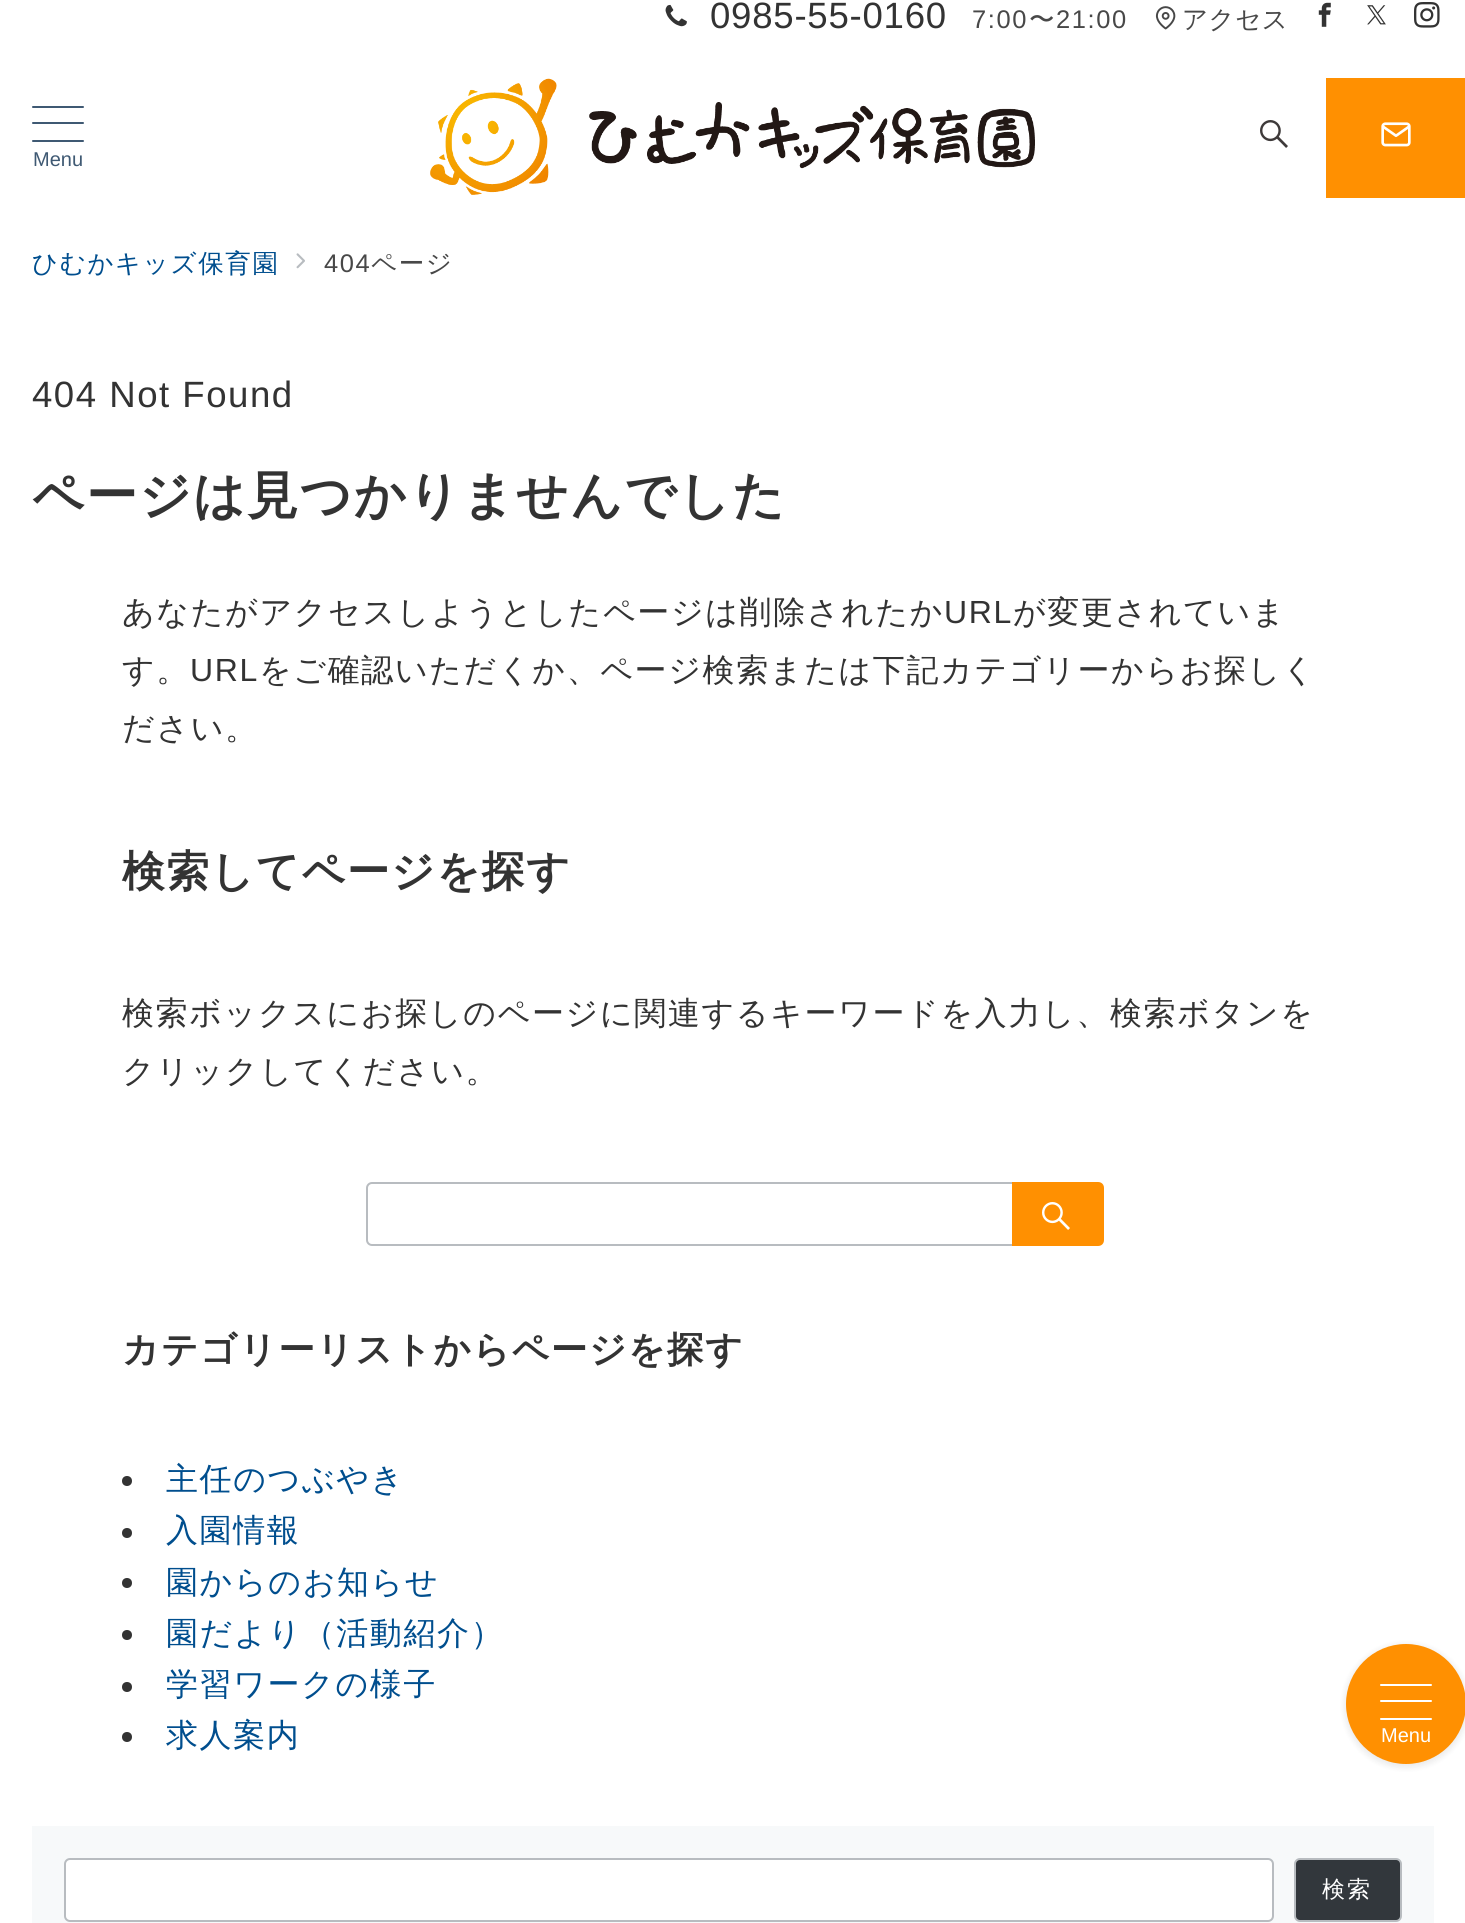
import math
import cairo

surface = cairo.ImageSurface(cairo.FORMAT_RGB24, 1465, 1923)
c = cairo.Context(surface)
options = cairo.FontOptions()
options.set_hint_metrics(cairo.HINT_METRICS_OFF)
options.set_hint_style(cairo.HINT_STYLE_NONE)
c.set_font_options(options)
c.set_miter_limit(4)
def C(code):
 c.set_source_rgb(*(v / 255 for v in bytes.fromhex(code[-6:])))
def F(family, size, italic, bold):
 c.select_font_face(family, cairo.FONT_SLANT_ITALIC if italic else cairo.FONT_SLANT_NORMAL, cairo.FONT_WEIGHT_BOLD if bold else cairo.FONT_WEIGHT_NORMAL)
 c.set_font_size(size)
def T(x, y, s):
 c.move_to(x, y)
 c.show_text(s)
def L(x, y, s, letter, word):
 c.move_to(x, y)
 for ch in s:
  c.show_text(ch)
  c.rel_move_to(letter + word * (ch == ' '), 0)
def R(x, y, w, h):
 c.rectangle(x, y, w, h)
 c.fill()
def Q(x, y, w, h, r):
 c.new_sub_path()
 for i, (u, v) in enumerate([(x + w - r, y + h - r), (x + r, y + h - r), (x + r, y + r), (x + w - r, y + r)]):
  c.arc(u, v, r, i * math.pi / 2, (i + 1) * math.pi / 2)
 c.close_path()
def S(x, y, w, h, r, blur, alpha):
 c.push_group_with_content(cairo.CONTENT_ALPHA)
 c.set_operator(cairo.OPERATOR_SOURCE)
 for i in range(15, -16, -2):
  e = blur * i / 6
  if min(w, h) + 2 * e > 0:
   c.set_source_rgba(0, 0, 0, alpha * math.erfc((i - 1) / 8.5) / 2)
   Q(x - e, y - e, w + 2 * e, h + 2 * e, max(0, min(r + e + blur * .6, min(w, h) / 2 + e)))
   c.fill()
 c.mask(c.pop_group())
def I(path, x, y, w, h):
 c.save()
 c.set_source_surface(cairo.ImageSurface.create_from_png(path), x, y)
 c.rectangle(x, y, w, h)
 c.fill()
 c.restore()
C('ffffff')
c.paint()
I('1.png',665,4,22,23)
F('Liberation Sans',36.6,0,0)
C('333333')
L(710,28,'0985-55-0160',.75,0)
F('Liberation Sans',25.5,0,0)
C('484848')
L(972,28,'7:00',1.6,0)
F('WenQuanYi Zen Hei Medium',25.5,0,0)
L(1029,28,'〜',1.6,0)
F('Liberation Sans',25.5,0,0)
L(1056,28,'21:00',1.6,0)
I('2.png',1155,6,21,24)
F('WenQuanYi Zen Hei Medium',25.5,0,0)
L(1182,28,'アクセス',.5,0)
I('3.png',1318,2,13,25)
I('4.png',1367,5,19,20)
I('5.png',1414,2,26,26)
C('3f5973')
Q(32,106,52,2,1)
c.fill()
Q(32,122,52,2,1)
c.fill()
Q(32,140,52,2,1)
c.fill()
F('Liberation Sans',20,0,0)
T(33,166,'Menu')
I('6.png',430,78,605,117)
I('7.png',1260,120,28,28)
C('ff9001')
R(1326,78,139,120)
I('8.png',1381,122,30,25)
F('WenQuanYi Zen Hei Medium',25.5,0,0)
C('004e8e')
L(32,272,'ひむかキッズ保育園',1.6,0)
I('9.png',296,253,9,16)
F('Liberation Sans',25.5,0,0)
C('484848')
L(324,272,'404',1.6,0)
F('WenQuanYi Zen Hei Medium',25.5,0,0)
L(371,272,'ページ',1.6,0)
F('Liberation Sans',36.6,0,0)
C('333333')
L(32,407,'404 Not Found',1.5,0)
F('WenQuanYi Zen Hei',51.25,0,1)
L(32,513,'ページは見つかりませんでした',1.6,0)
F('WenQuanYi Zen Hei Medium',32,0,0)
L(122,623,'あなたがアクセスしようとしたページは削除されたか',1.6,0)
F('Liberation Sans',32,0,0)
L(944,623,'URL',1.6,0)
F('WenQuanYi Zen Hei Medium',32,0,0)
L(1013,623,'が変更されていま',1.6,0)
L(122,681,'す。',1.6,0)
F('Liberation Sans',32,0,0)
L(190,681,'URL',1.6,0)
F('WenQuanYi Zen Hei Medium',32,0,0)
L(259,681,'をご確認いただくか、ページ検索または下記カテゴリーからお探しく',1.6,0)
L(122,739,'ださい。',1.6,0)
F('WenQuanYi Zen Hei',42.75,0,1)
L(122,886,'検索してページを探す',1.6,0)
F('WenQuanYi Zen Hei Medium',32,0,0)
L(122,1024,'検索ボックスにお探しのページに関連するキーワードを入力し、検索ボタンを',1.6,0)
L(122,1082,'クリックしてください。',1.6,0)
Q(367,1183,732,62,5)
C('b8bcc0')
c.stroke()
C('ff9001')
c.new_path()
c.move_to(1013,1183)
c.line_to(1098,1183)
c.curve_to(1101,1183,1103,1185,1103,1188)
c.line_to(1103,1240)
c.curve_to(1103,1243,1101,1245,1098,1245)
c.line_to(1013,1245)
c.close_path()
c.fill_preserve()
c.stroke()
I('10.png',1042,1202,28,28)
F('WenQuanYi Zen Hei',36.6,0,1)
C('333333')
L(122,1362,'カテゴリーリストからページを探す',1.6,0)
c.new_path()
c.arc(127,1481,5,0,2 * math.pi)
c.fill()
F('WenQuanYi Zen Hei Medium',32,0,0)
C('004e8e')
L(166,1490,'主任のつぶやき',1.6,0)
C('333333')
c.new_path()
c.arc(127,1533,5,0,2 * math.pi)
c.fill()
C('004e8e')
L(166,1541,'入園情報',1.6,0)
C('333333')
c.new_path()
c.arc(127,1583,5,0,2 * math.pi)
c.fill()
C('004e8e')
L(166,1593,'園からのお知らせ',1.6,0)
C('333333')
c.new_path()
c.arc(127,1635,5,0,2 * math.pi)
c.fill()
C('004e8e')
L(166,1644,'園だより（活動紹介）',1.6,0)
C('333333')
c.new_path()
c.arc(127,1687,5,0,2 * math.pi)
c.fill()
C('004e8e')
L(166,1695,'学習ワークの様子',1.6,0)
C('333333')
c.new_path()
c.arc(127,1737,5,0,2 * math.pi)
c.fill()
C('004e8e')
L(166,1746,'求人案内',1.6,0)
C('f7f9fa')
R(32,1826,1402,97)
C('ffffff')
Q(65,1859,1208,62,5)
c.fill_preserve()
C('b8bcc0')
c.stroke()
C('32373c')
Q(1295,1859,106,62,5)
c.fill_preserve()
C('b8bcc0')
c.stroke()
F('WenQuanYi Zen Hei Medium',23,0,0)
C('ffffff')
L(1322,1897,'検索',2,0)
C('000000')
S(1344,1644,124,124,62,3,.08)
C('ff9001')
c.arc(1406,1704,60,0,2 * math.pi)
c.fill()
C('ffffff')
Q(1380,1684,52,2,1)
c.fill()
Q(1380,1700,52,2,1)
c.fill()
Q(1380,1718,52,2,1)
c.fill()
F('Liberation Sans',20,0,0)
T(1381,1742,'Menu')
surface.write_to_png('o.png')
